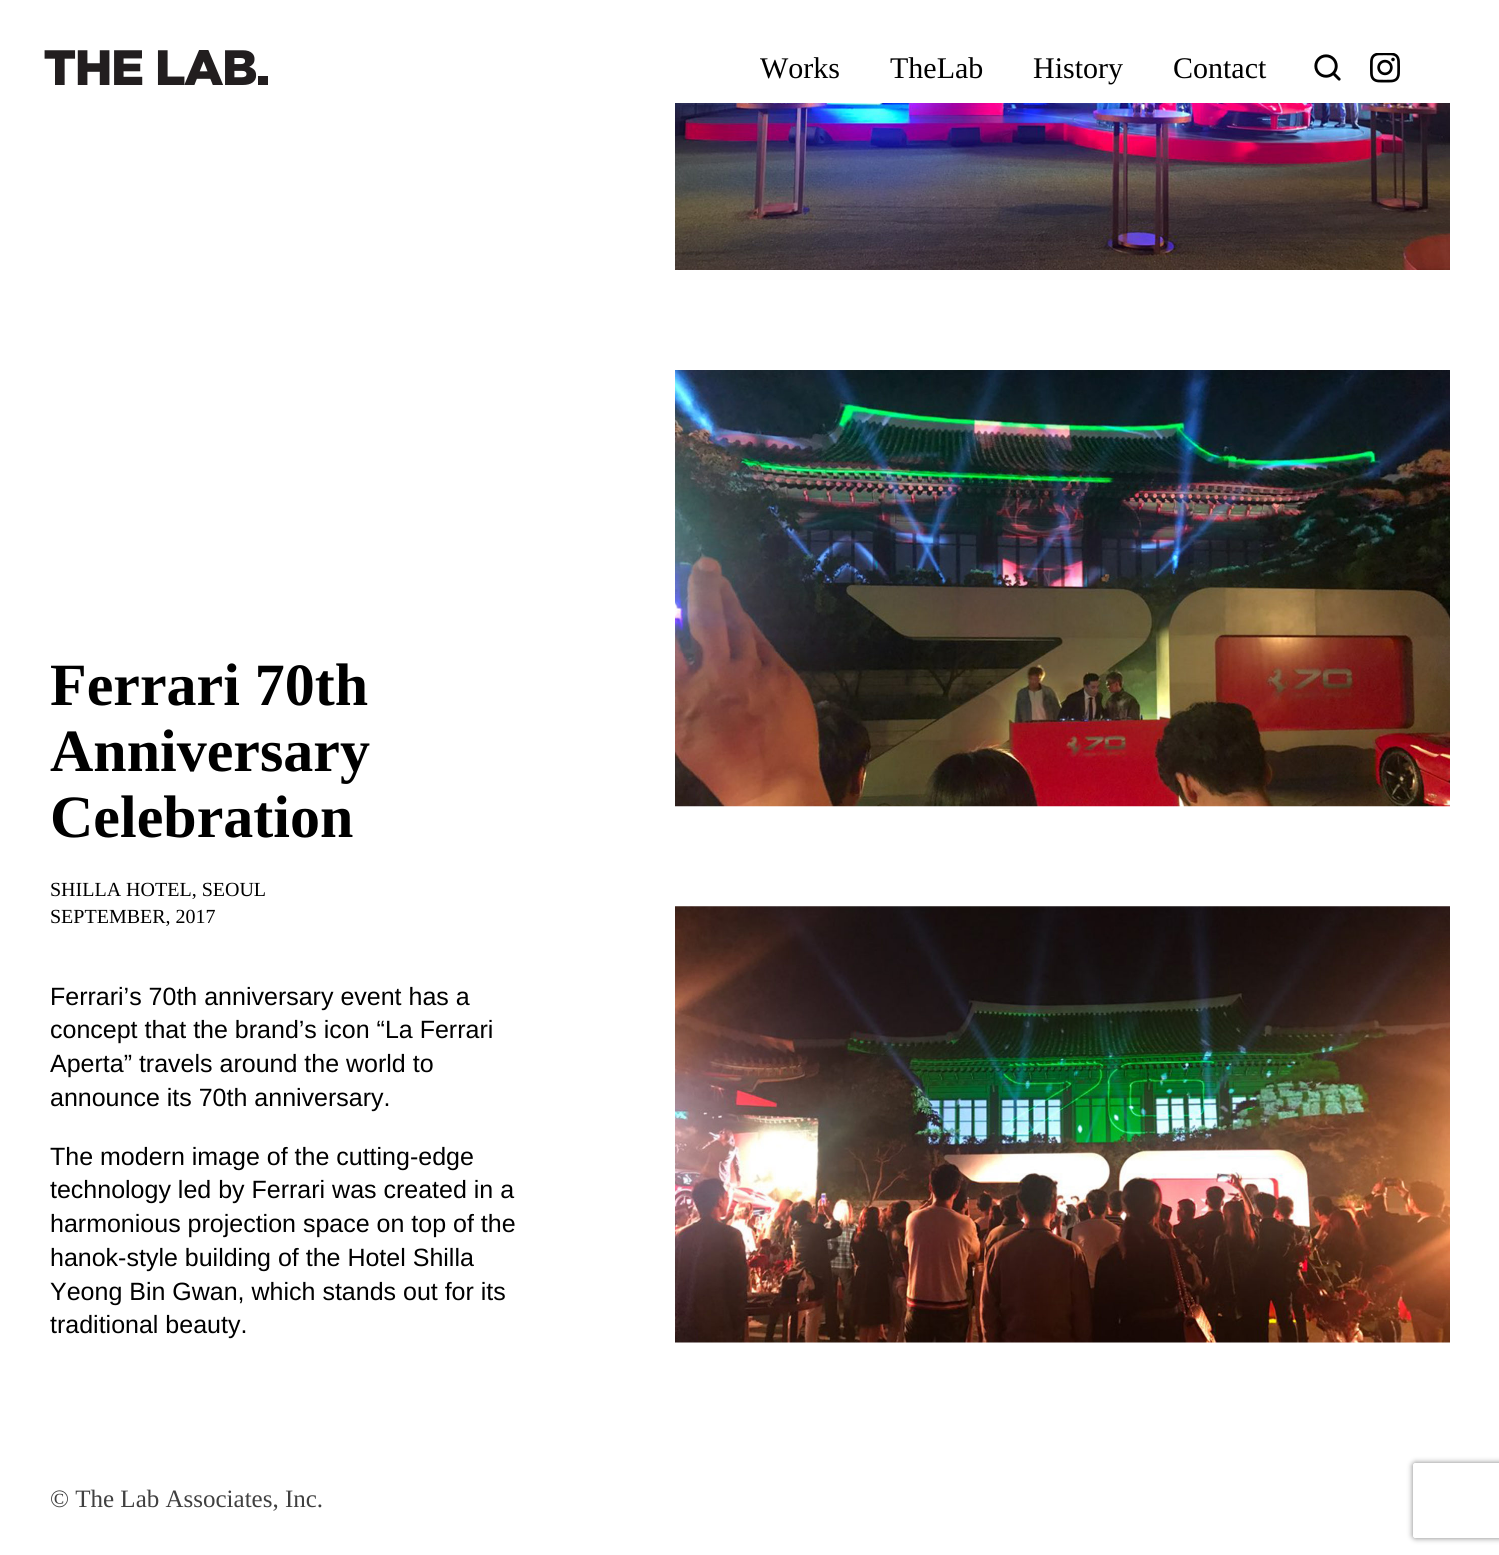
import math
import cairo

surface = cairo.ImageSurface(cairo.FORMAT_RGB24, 1499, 1555)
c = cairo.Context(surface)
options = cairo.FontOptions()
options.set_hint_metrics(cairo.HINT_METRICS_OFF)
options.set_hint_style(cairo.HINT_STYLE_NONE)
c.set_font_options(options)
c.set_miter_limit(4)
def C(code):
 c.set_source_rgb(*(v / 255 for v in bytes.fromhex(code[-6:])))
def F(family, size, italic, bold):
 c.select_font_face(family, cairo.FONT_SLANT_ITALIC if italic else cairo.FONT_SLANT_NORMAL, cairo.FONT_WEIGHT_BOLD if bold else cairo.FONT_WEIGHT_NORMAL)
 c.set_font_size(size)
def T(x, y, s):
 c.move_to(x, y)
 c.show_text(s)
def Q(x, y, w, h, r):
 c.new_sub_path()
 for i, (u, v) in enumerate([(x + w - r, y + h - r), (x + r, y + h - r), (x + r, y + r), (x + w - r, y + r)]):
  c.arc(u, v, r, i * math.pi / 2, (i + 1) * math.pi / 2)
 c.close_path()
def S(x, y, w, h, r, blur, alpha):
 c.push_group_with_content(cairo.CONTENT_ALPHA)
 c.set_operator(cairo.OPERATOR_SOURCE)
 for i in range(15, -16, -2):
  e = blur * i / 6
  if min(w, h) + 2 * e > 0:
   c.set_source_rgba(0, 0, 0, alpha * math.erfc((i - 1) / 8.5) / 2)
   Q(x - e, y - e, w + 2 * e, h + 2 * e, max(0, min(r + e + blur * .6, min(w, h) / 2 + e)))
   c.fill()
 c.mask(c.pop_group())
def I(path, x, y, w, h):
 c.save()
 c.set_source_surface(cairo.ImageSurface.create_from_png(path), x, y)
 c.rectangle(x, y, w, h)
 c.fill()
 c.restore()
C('ffffff')
c.paint()
I('1.png',44,50,224,35)
F('Liberation Serif',30,0,0)
C('000000')
T(760,78,'Works')
T(890,78,'TheLab')
T(1033,78,'History')
T(1173,78,'Contact')
I('2.png',1314,54,27,27)
I('3.png',1370,53,30,30)
F('Liberation Serif',60,0,1)
T(50,705,'Ferrari 70th')
T(50,771,'Anniversary')
T(50,837,'Celebration')
F('Liberation Serif',20,0,0)
T(50,896,'SHILLA HOTEL, SEOUL')
T(50,923,'SEPTEMBER, 2017')
F('Liberation Sans',25,0,0)
T(50,1005,'Ferrari’s 70th anniversary event has a')
T(50,1038,'concept that the brand’s icon “La Ferrari')
T(50,1072,'Aperta” travels around the world to')
T(50,1106,'announce its 70th anniversary.')
T(50,1165,'The modern image of the cutting-edge')
T(50,1198,'technology led by Ferrari was created in a')
T(50,1232,'harmonious projection space on top of the')
T(50,1266,'hanok-style building of the Hotel Shilla')
T(50,1300,'Yeong Bin Gwan, which stands out for its')
T(50,1333,'traditional beauty.')
I('4.png',675,103,775,167)
I('5.png',675,370,775,437)
I('6.png',675,906,775,437)
F('Liberation Serif',25,0,0)
C('404040')
T(50,1507,'© The Lab Associates, Inc.')
c.save()
c.set_fill_rule(cairo.FILL_RULE_EVEN_ODD)
c.new_path()
c.move_to(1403,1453)
c.line_to(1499,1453)
c.line_to(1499,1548)
c.line_to(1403,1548)
c.close_path()
c.move_to(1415.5,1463)
c.line_to(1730.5,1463)
c.curve_to(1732,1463,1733,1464,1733,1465.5)
c.line_to(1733,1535.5)
c.curve_to(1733,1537,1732,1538,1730.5,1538)
c.line_to(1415.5,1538)
c.curve_to(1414,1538,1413,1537,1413,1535.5)
c.line_to(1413,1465.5)
c.curve_to(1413,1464,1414,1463,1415.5,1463)
c.close_path()
c.clip()
C('808080')
S(1413,1463,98,75,2.5,3,1)
c.restore()
surface.write_to_png('o.png')
